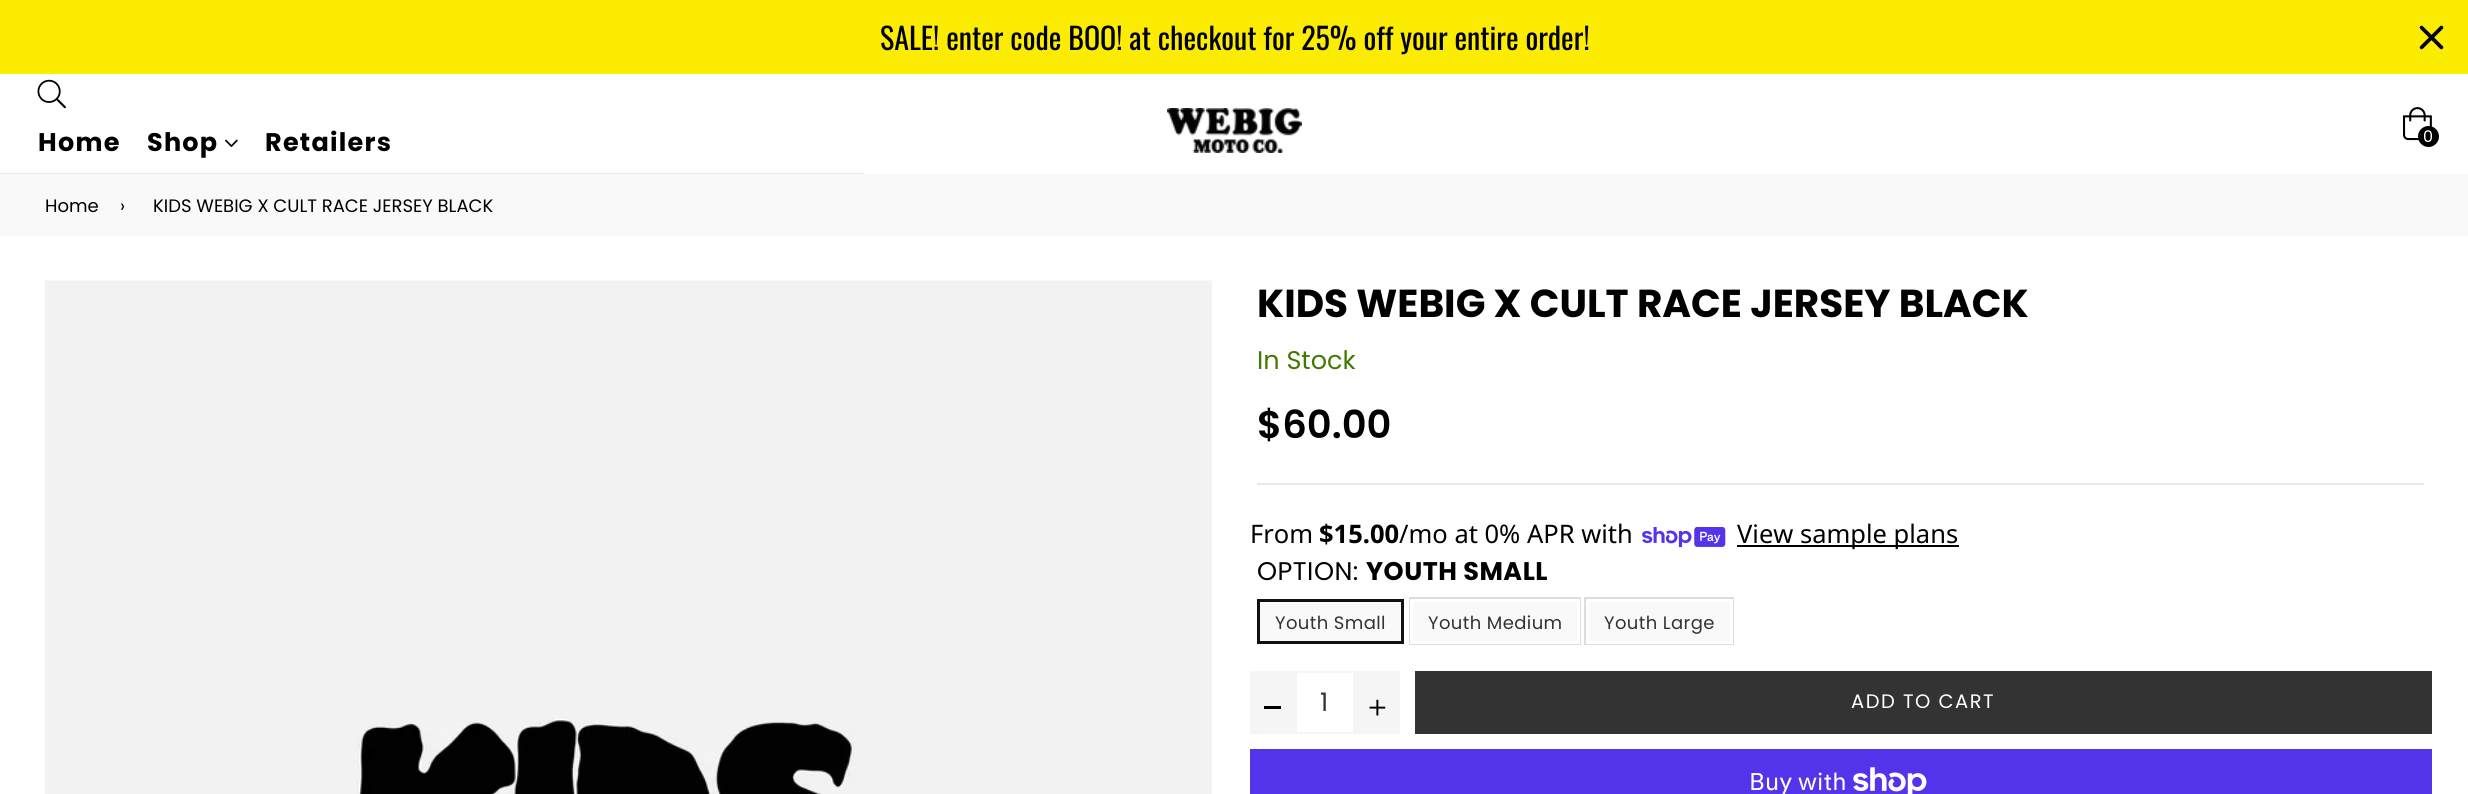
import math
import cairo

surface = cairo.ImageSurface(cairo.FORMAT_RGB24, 2468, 794)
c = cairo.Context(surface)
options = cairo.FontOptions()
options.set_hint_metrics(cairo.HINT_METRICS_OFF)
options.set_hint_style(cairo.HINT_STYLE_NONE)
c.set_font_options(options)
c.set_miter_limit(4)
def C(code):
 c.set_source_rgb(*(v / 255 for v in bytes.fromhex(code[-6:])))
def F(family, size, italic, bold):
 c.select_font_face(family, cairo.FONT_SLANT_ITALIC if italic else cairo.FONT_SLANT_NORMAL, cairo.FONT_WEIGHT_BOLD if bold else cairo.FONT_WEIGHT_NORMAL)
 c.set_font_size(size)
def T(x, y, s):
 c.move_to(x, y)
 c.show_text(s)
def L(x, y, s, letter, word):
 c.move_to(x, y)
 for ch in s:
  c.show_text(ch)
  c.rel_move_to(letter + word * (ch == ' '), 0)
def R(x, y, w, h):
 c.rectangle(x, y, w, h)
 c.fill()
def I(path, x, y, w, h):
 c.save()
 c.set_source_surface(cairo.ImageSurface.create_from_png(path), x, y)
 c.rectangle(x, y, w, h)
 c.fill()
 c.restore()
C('ffffff')
c.paint()
C('fbec02')
R(0,0,2468,74)
F('Oswald',30,0,0)
C('000000')
T(880,50,'SALE! enter code BOO! at checkout for 25% off your entire order!')
I('1.png',2419,25,25,25)
I('2.png',37,79,29,30)
F('Poppins',25.5,0,1)
L(38,151,'Home',1.25,0)
L(147,151,'Shop',1.25,0)
I('3.png',225,139,13,8)
L(265,151,'Retailers',1.25,0)
I('4.png',1167,108,135,45)
I('5.png',2403,107,29,34)
c.arc(2428.5,136.5,10.5,0,2 * math.pi)
c.fill()
F('Poppins',16,0,0)
C('ffffff')
T(2423,142,'0')
C('e8e9eb')
R(0,173,864,1)
C('f9f9f9')
R(0,174,2468,62)
F('Poppins',18,0,0)
C('000000')
T(45,212,'Home')
T(120,212,'›')
T(153,212,'KIDS WEBIG X CULT RACE JERSEY BLACK')
I('6.png',45,280,1167,514)
F('Poppins',39,0,1)
T(1257,317,'KIDS WEBIG X CULT RACE JERSEY BLACK')
F('Poppins',25.5,0,0)
C('447900')
T(1257,369,'In Stock')
F('Poppins SemiBold',38.5,0,0)
C('000000')
T(1257,438,'$60.00')
C('e8e9eb')
R(1257,483,1167,2)
F('Noto Sans',25.5,0,0)
C('000000')
T(1250,543,'From')
F('Noto Sans',25.5,0,1)
T(1319,543,'$15.00')
F('Noto Sans',25.5,0,0)
T(1399,543,'/mo at 0% APR with')
I('7.png',1642,527,84,21)
R(1737,545,222,2)
T(1737,543,'View sample plans')
F('Poppins',25.5,0,0)
L(1257,580,'OPTION:',.5,0)
F('Poppins',25.5,0,1)
L(1366,580,'YOUTH SMALL',.5,0)
C('f9f9f9')
c.rectangle(1258.5,600.5,144,42)
c.fill_preserve()
C('111111')
c.set_line_width(3)
c.stroke()
F('Poppins',18,0,0)
C('333333')
L(1275,629,'Youth Small',.4,0)
c.rectangle(1410,598,170,46)
C('dddddd')
c.set_line_width(2)
c.stroke()
C('f9f9f9')
c.rectangle(1411.5,600.5,167,42)
c.fill_preserve()
C('ffffff')
c.set_line_width(3)
c.stroke()
C('333333')
L(1428,629,'Youth Medium',.4,0)
c.rectangle(1585,598,148,46)
C('dddddd')
c.set_line_width(2)
c.stroke()
C('f9f9f9')
c.rectangle(1587.5,600.5,144,42)
c.fill_preserve()
C('ffffff')
c.set_line_width(3)
c.stroke()
C('333333')
L(1604,629,'Youth Large',.4,0)
C('f5f5f5')
R(1250,671,45,63)
C('000000')
R(1264,706,17,3)
c.rectangle(1296,672,58,61)
C('f5f5f5')
c.set_line_width(2)
c.stroke()
F('Poppins',25.5,0,0)
C('333333')
T(1320,711,'1')
C('f5f5f5')
R(1355,671,45,63)
I('8.png',1369,699,17,17)
C('333333')
R(1415,671,1017,63)
F('Poppins',19.5,0,0)
C('ffffff')
L(1851,708,'ADD TO CART',1.5,0)
C('5433eb')
R(1250,749,1182,45)
F('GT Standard',24,0,0)
C('ffffff')
T(1749,790,'Buy with')
I('9.png',1853,767,74,27)
surface.write_to_png('o.png')
